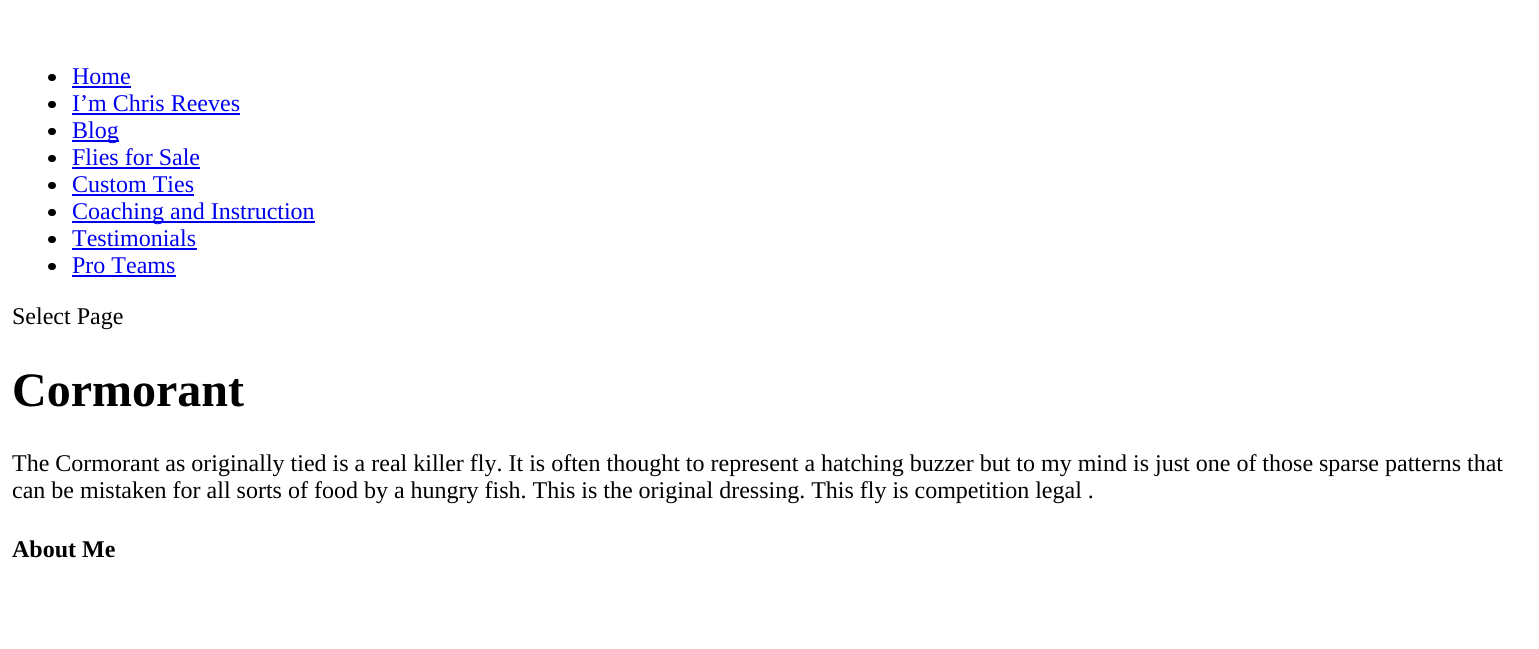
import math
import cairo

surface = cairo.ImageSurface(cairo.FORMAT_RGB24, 1539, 649)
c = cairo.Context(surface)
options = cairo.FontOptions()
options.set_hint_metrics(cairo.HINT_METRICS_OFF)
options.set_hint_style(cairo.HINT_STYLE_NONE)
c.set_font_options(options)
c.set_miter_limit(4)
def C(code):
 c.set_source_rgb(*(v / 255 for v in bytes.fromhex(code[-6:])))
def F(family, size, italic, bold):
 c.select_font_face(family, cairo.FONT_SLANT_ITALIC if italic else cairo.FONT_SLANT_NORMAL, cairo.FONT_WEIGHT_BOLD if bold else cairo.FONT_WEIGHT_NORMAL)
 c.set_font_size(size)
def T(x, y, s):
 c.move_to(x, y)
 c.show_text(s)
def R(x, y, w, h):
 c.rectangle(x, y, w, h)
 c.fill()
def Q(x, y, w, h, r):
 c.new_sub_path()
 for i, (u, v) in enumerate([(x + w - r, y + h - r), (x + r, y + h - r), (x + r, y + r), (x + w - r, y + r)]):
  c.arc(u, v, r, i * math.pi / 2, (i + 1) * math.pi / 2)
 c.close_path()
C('ffffff')
c.paint()
C('000000')
Q(48,74,8,7,3.5)
c.fill()
F('Liberation Serif',24,0,0)
C('0000ee')
T(72,84,'Home')
R(72,86,59,2)
C('000000')
Q(48,101,8,7,3.5)
c.fill()
C('0000ee')
T(72,111,'I’m Chris Reeves')
R(72,113,168,2)
C('000000')
Q(48,128,8,7,3.5)
c.fill()
C('0000ee')
R(72,140,47,2)
T(72,138,'Blog')
C('000000')
Q(48,155,8,7,3.5)
c.fill()
C('0000ee')
T(72,165,'Flies for Sale')
R(72,167,128,2)
C('000000')
Q(48,182,8,7,3.5)
c.fill()
C('0000ee')
T(72,192,'Custom Ties')
R(72,194,122,2)
C('000000')
Q(48,209,8,7,3.5)
c.fill()
C('0000ee')
R(72,221,243,2)
T(72,219,'Coaching and Instruction')
C('000000')
Q(48,236,8,7,3.5)
c.fill()
C('0000ee')
T(72,246,'Testimonials')
R(72,248,125,2)
C('000000')
Q(48,263,8,7,3.5)
c.fill()
C('0000ee')
T(72,273,'Pro Teams')
R(72,275,104,2)
C('000000')
T(12,324,'Select Page')
F('Liberation Serif',48,0,1)
T(12,406,'Cormorant')
F('Liberation Serif',24,0,0)
T(12,471,'The Cormorant as originally tied is a real killer fly. It is often thought to represent a hatching buzzer but to my mind is just one of those sparse patterns that')
T(12,498,'can be mistaken for all sorts of food by a hungry fish. This is the original dressing. This fly is competition legal .')
F('Liberation Serif',24,0,1)
T(12,557,'About Me')
surface.write_to_png('o.png')
